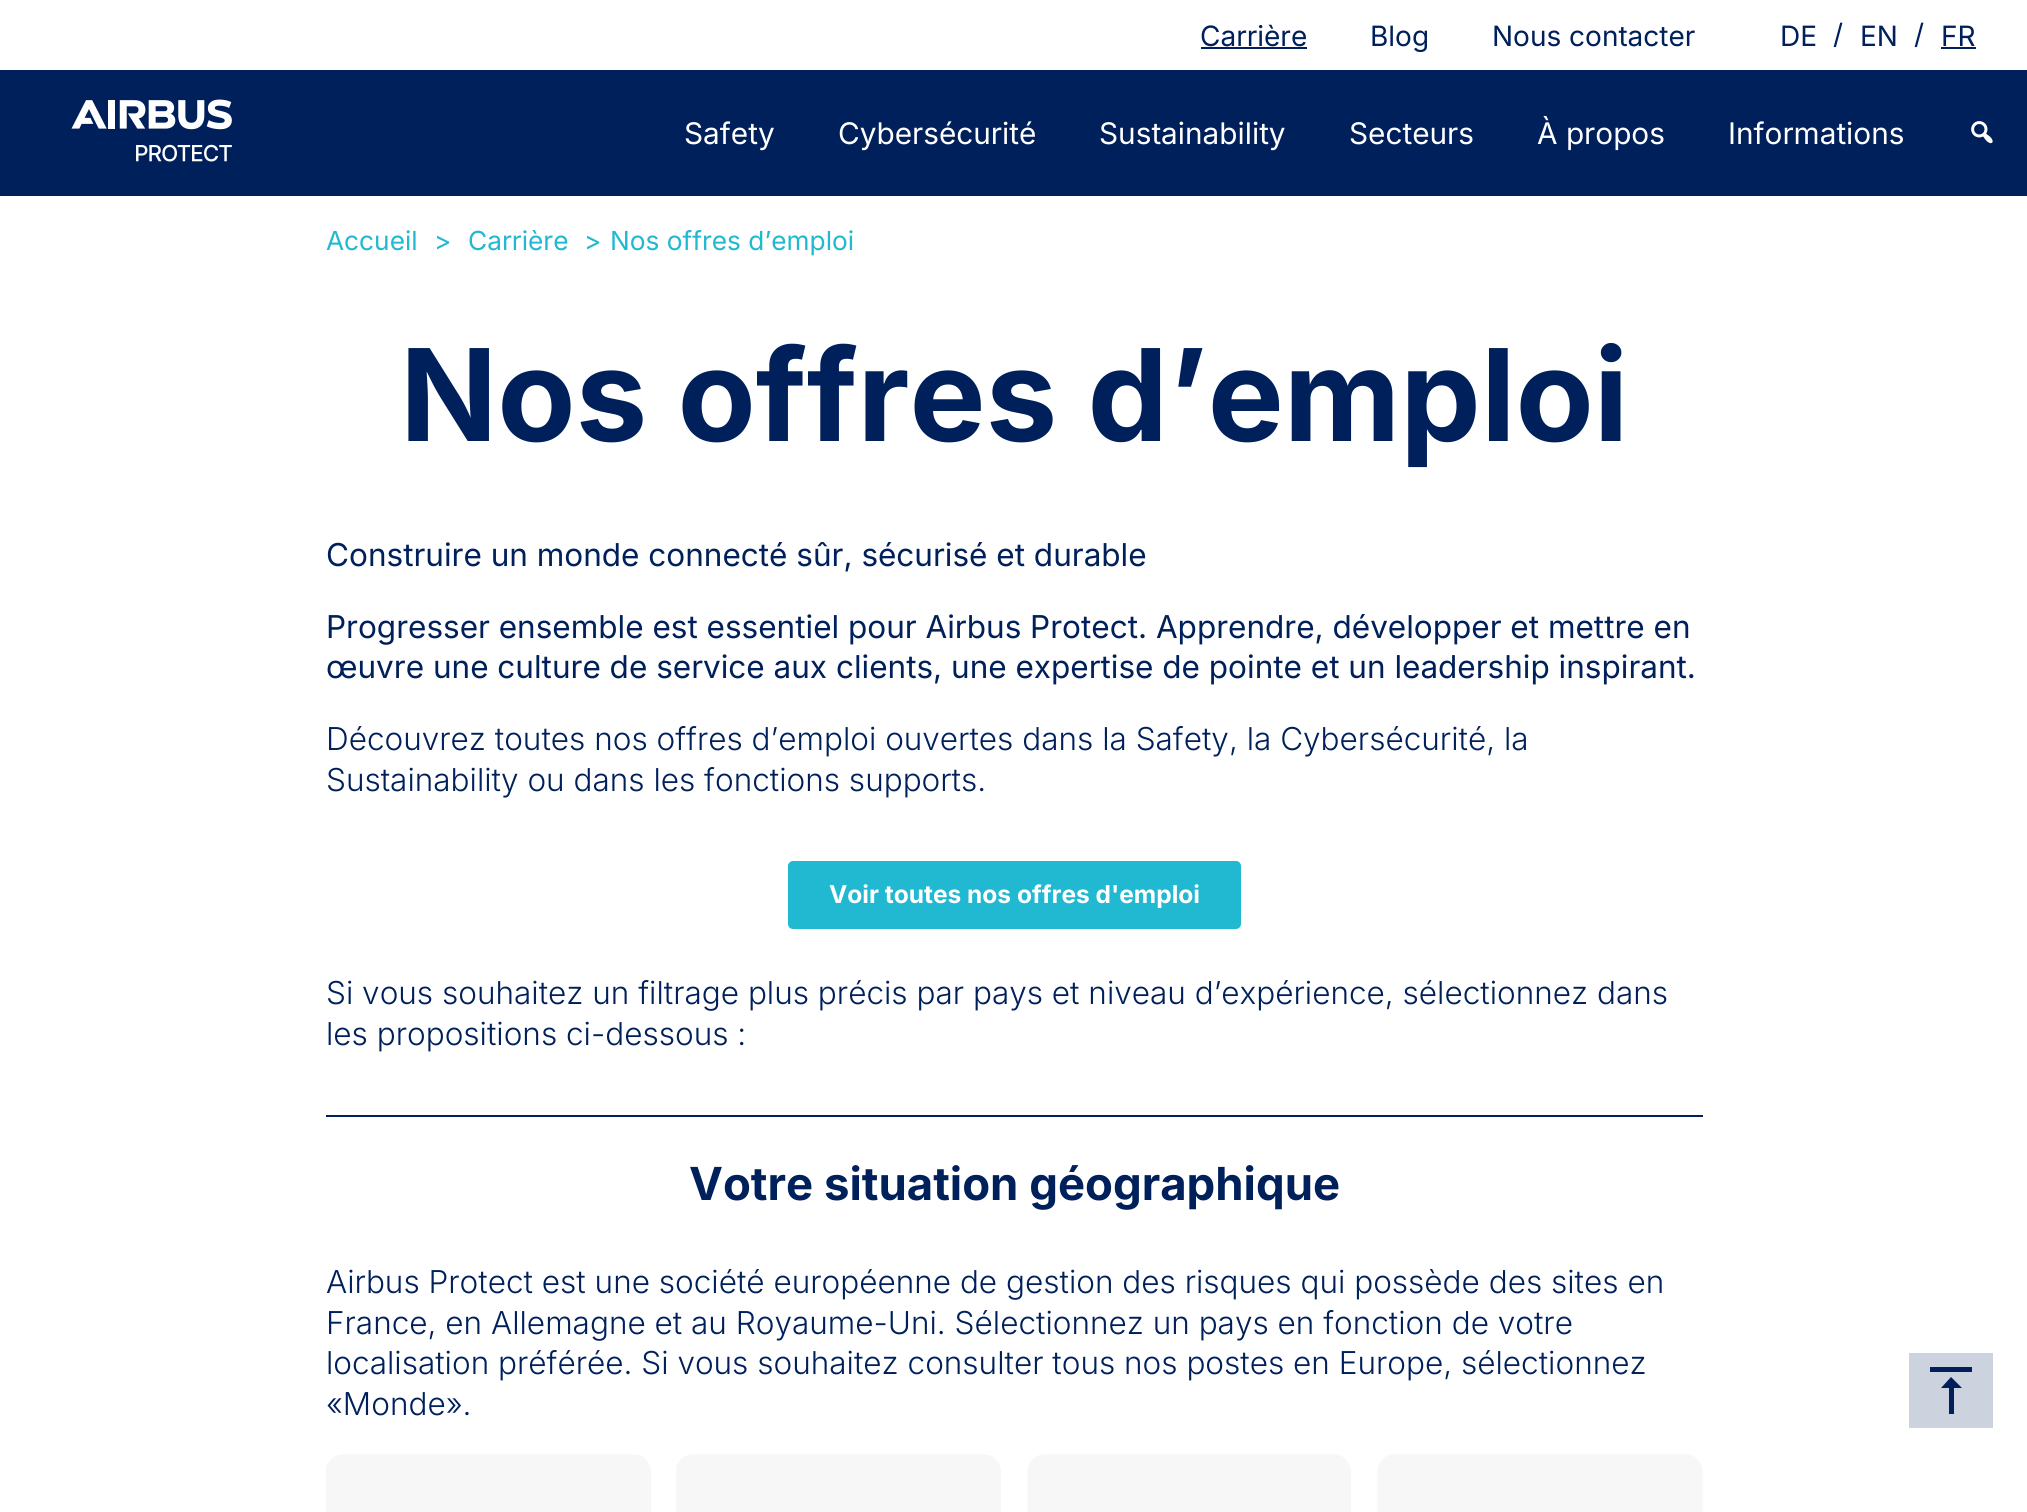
import math
import cairo

surface = cairo.ImageSurface(cairo.FORMAT_RGB24, 2027, 1512)
c = cairo.Context(surface)
options = cairo.FontOptions()
options.set_hint_metrics(cairo.HINT_METRICS_OFF)
options.set_hint_style(cairo.HINT_STYLE_NONE)
c.set_font_options(options)
c.set_miter_limit(4)
def C(code):
 c.set_source_rgb(*(v / 255 for v in bytes.fromhex(code[-6:])))
def F(family, size, italic, bold):
 c.select_font_face(family, cairo.FONT_SLANT_ITALIC if italic else cairo.FONT_SLANT_NORMAL, cairo.FONT_WEIGHT_BOLD if bold else cairo.FONT_WEIGHT_NORMAL)
 c.set_font_size(size)
def T(x, y, s):
 c.move_to(x, y)
 c.show_text(s)
def R(x, y, w, h):
 c.rectangle(x, y, w, h)
 c.fill()
def Q(x, y, w, h, r):
 c.new_sub_path()
 for i, (u, v) in enumerate([(x + w - r, y + h - r), (x + r, y + h - r), (x + r, y + r), (x + w - r, y + r)]):
  c.arc(u, v, r, i * math.pi / 2, (i + 1) * math.pi / 2)
 c.close_path()
def I(path, x, y, w, h):
 c.save()
 c.set_source_surface(cairo.ImageSurface.create_from_png(path), x, y)
 c.rectangle(x, y, w, h)
 c.fill()
 c.restore()
C('ffffff')
c.paint()
F('Inter',28,0,0)
C('00205b')
T(1200,46,'Carrière')
C('021f5b')
R(1201,47,106,2)
C('00205b')
T(1370,46,'Blog')
T(1492,46,'Nous contacter')
T(1780,46,'DE')
T(1833,44,'/')
T(1860,46,'EN')
T(1914,44,'/')
T(1941,46,'FR')
R(1941,47,35,2)
R(0,70,2027,126)
I('1.png',71,99,161,63)
F('Inter',29.75,0,0)
C('ffffff')
T(684,144,'Safety')
T(838,144,'Cybersécurité')
T(1099,144,'Sustainability')
T(1349,144,'Secteurs')
T(1537,144,'À propos')
T(1728,144,'Informations')
I('2.png',1971,121,22,23)
F('Inter',26.25,0,0)
C('21b8d1')
T(326,250,'Accueil')
T(434,250,'>')
T(468,250,'Carrière')
T(584,250,'>')
T(610,250,'Nos offres d’emploi')
F('Inter',127.75,0,1)
C('00205b')
T(400,441,'Nos offres d’emploi')
F('Inter',31.5,0,0)
T(326,566,'Construire un monde connecté sûr, sécurisé et durable')
T(326,638,'Progresser ensemble est essentiel pour Airbus Protect. Apprendre, développer et mettre en')
T(326,678,'œuvre une culture de service aux clients, une expertise de pointe et un leadership inspirant.')
F('Inter Light',31.5,0,0)
T(326,750,'Découvrez toutes nos offres d’emploi ouvertes dans la Safety, la Cybersécurité, la')
T(326,791,'Sustainability ou dans les fonctions supports.')
C('21b8d1')
Q(789,862,451,66,4)
c.fill_preserve()
c.stroke()
F('Inter',24.5,0,1)
C('ffffff')
T(829,903,'Voir toutes nos offres d\'emploi')
F('Inter Light',31.5,0,0)
C('00205b')
T(326,1004,'Si vous souhaitez un filtrage plus précis par pays et niveau d’expérience, sélectionnez dans')
T(326,1045,'les propositions ci-dessous :')
R(326,1115,1377,2)
F('Inter',45.5,0,1)
T(689,1200,'Votre situation géographique')
F('Inter Light',31.5,0,0)
T(326,1293,'Airbus Protect est une société européenne de gestion des risques qui possède des sites en')
T(326,1334,'France, en Allemagne et au Royaume-Uni. Sélectionnez un pays en fonction de votre')
T(326,1374,'localisation préférée. Si vous souhaitez consulter tous nos postes en Europe, sélectionnez')
T(326,1415,'«Monde».')
I('3.png',326,1454,325,58)
I('3.png',676,1454,325,58)
I('4.png',1027,1454,324,58)
I('5.png',1377,1454,326,58)
C('ccd2de')
R(1909,1353,84,75)
C('021f5b')
c.new_path()
c.move_to(1941,1388)
c.line_to(1949,1388)
c.line_to(1949,1414)
c.line_to(1954,1414)
c.line_to(1954,1388)
c.line_to(1962,1388)
c.line_to(1951,1377)
c.close_path()
c.move_to(1930,1367)
c.line_to(1930,1372)
c.line_to(1972,1372)
c.line_to(1972,1367)
c.close_path()
c.fill()
surface.write_to_png('o.png')
